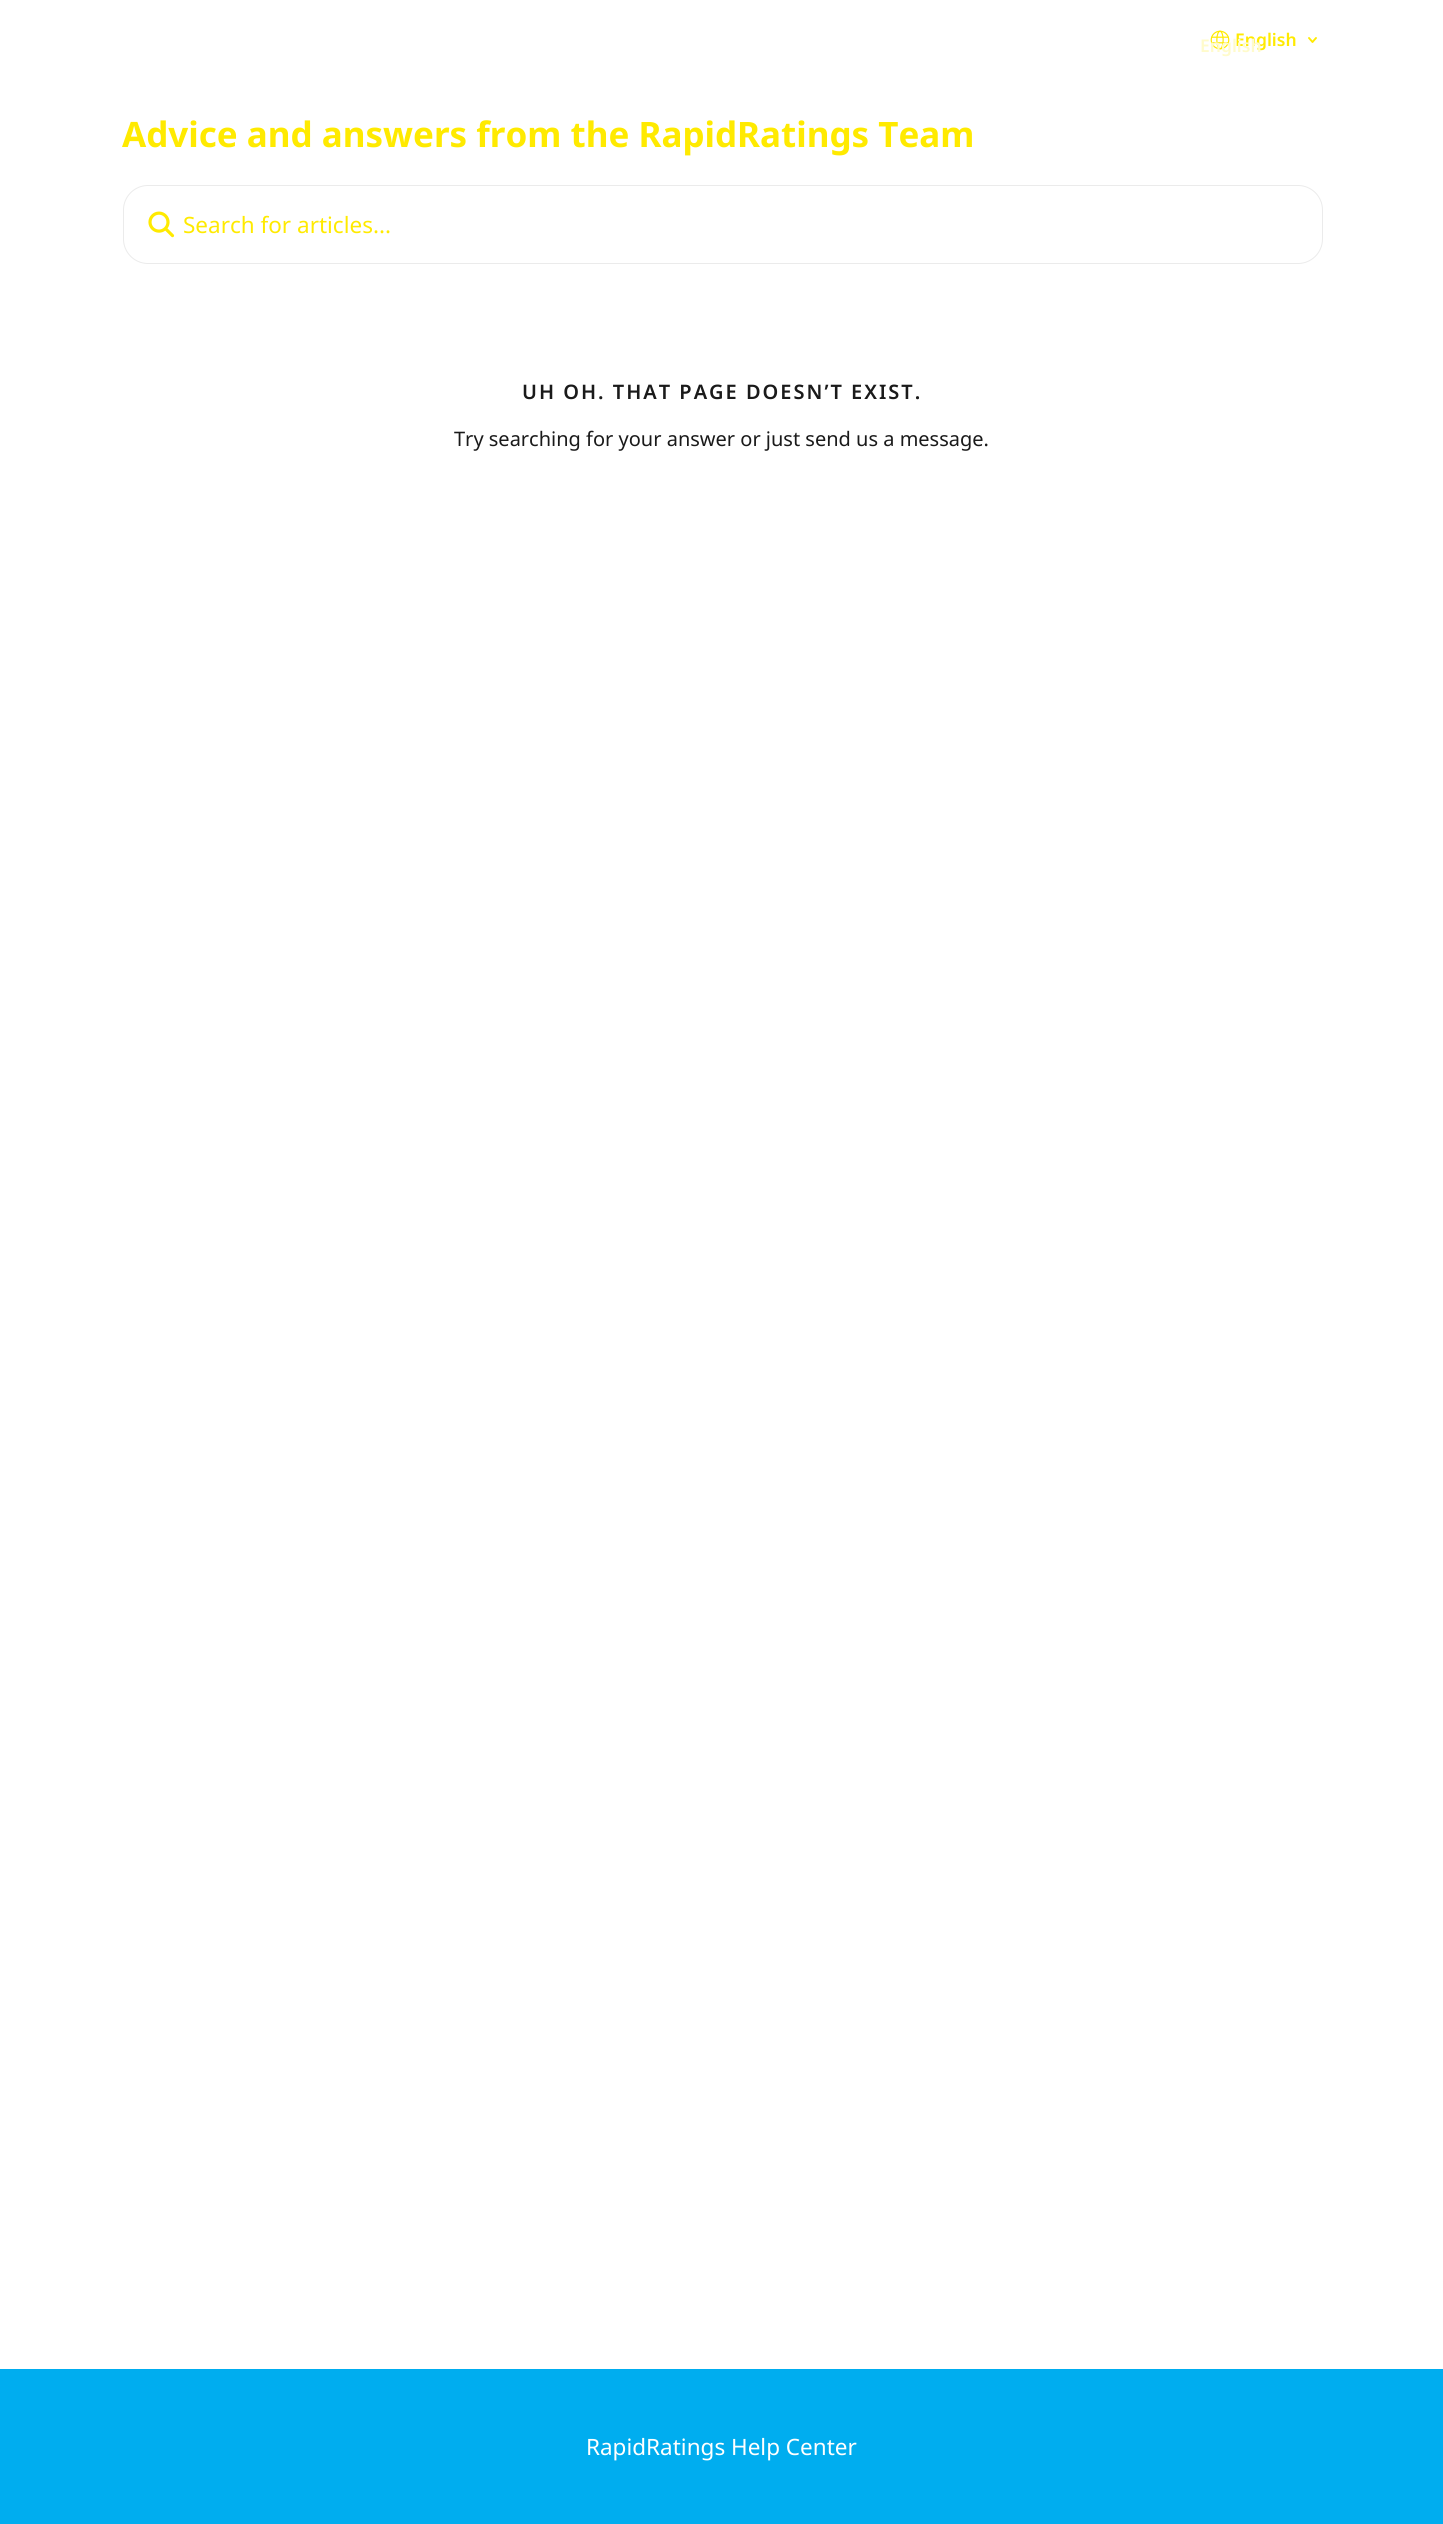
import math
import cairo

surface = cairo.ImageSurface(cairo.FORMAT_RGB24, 1443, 2524)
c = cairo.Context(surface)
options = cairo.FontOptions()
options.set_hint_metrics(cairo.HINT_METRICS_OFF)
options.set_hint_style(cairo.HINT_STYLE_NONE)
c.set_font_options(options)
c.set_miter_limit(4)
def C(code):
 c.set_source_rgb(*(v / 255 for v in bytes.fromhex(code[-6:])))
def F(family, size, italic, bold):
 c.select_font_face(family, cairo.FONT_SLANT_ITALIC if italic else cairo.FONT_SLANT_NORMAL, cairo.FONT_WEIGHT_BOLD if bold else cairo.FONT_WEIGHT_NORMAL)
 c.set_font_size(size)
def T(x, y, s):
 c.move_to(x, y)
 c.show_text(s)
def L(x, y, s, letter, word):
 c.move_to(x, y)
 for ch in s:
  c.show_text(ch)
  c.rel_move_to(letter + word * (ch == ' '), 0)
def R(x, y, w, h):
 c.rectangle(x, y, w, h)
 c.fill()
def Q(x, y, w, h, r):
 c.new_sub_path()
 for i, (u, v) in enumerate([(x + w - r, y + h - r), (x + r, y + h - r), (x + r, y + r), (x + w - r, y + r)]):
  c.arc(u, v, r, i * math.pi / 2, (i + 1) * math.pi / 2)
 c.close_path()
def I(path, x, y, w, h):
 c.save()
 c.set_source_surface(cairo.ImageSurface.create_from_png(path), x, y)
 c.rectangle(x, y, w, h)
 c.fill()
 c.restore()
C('ffffff')
c.paint()
I('1.png',1210,30,20,20)
F('Noto Sans SemiBold',17.5,0,0)
C('ffea00')
T(1235,46,'English')
C('fffbcb')
T(1200,52,'English')
c.new_path()
c.move_to(1309,38)
c.line_to(1312.5,42)
c.line_to(1316,38)
C('ffea00')
c.set_line_width(1.9)
c.set_line_cap(cairo.LINE_CAP_ROUND)
c.set_line_join(cairo.LINE_JOIN_ROUND)
c.stroke()
F('Noto Sans',35,0,1)
T(122,147,'Advice and answers from the RapidRatings Team')
Q(123.5,185.5,1199,78,24.5)
c.set_source_rgba(0,0,0,0.08)
c.set_line_width(1)
c.set_line_cap(cairo.LINE_CAP_BUTT)
c.set_line_join(cairo.LINE_JOIN_MITER)
c.stroke()
I('2.png',148,211,27,27)
F('Noto Sans',22.5,0,0)
C('ffea00')
T(183,233,'Search for articles...')
F('Noto Sans SemiBold',20,0,0)
C('1a1a1a')
L(522,399,'UH OH. THAT PAGE DOESN’T EXIST.',2,0)
F('Noto Sans',20,0,0)
T(454,446,'Try searching for your answer or just send us a message.')
C('00adef')
R(0,2369,1443,155)
F('Noto Sans',22.5,0,0)
C('ffffff')
T(586,2455,'RapidRatings Help Center')
surface.write_to_png('o.png')
